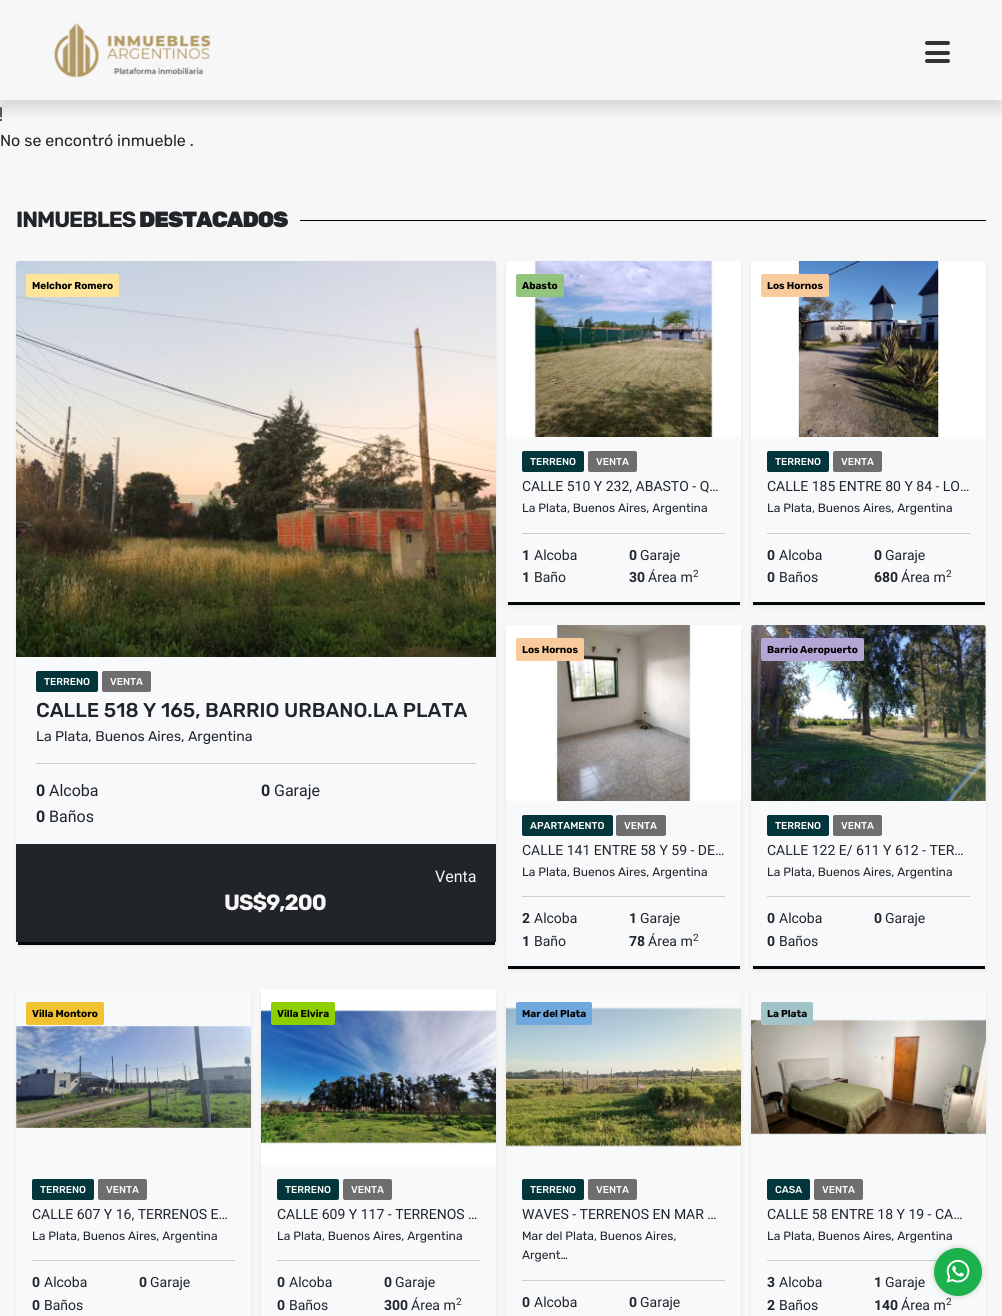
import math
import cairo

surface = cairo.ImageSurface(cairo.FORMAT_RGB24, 1002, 1316)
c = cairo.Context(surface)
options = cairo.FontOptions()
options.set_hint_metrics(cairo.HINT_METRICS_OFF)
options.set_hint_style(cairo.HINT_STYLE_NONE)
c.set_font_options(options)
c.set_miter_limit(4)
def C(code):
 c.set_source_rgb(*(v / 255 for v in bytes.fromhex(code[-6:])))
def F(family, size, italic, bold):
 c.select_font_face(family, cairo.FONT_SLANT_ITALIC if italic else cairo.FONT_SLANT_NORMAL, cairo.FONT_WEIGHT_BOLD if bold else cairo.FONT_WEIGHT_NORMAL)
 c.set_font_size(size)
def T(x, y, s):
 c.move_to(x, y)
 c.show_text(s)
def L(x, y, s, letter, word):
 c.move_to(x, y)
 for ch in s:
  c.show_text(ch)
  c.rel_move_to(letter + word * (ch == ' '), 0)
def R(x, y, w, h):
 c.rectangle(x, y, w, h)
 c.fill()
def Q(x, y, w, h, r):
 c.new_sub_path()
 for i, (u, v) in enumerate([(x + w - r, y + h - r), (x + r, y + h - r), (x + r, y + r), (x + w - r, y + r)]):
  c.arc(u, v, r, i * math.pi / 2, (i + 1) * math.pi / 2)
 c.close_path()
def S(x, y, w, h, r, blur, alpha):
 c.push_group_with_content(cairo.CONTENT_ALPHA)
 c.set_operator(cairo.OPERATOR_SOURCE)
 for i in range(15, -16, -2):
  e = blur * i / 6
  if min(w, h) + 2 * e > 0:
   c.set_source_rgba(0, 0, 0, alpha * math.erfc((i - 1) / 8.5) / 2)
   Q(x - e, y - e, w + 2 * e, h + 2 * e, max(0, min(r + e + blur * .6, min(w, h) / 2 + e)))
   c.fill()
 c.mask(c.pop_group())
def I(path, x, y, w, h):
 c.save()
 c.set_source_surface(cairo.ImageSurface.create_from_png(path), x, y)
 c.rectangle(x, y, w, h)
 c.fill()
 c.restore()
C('f7f7f7')
c.paint()
I('2.png',0,107,2,14)
c.save()
c.rectangle(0,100,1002,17)
c.clip()
C('000000')
S(0,8,1002,100,0,8,.15)
c.restore()
I('1.png',54,23,157,55)
C('333333')
Q(925,41,25,4,2)
c.fill()
Q(925,51,25,4,2)
c.fill()
Q(925,59,25,4,2)
c.fill()
F('Rubik',16,0,0)
C('212529')
T(0,146,'No se encontró inmueble .')
C('000809')
R(300,220,686,1)
F('Rubik',22,0,1)
C('212529')
L(16,227,'INMUEBLES',-1,0)
F('Rubik Black',22,0,0)
L(139,227,'DESTACADOS',-1,0)
C('000000')
S(16,263,480,684,3,2,.07)
C('f8f9fa')
Q(16,261,480,684,3)
c.fill()
C('000809')
R(18,942,477,3)
I('3.png',16,261,480,396)
C('ffe599')
Q(26,274,93,23,2)
c.fill()
F('Rubik',10,0,1)
C('000000')
T(32,289,'Melchor Romero')
C('02363a')
Q(36,671,62,21,2)
c.fill()
F('Rubik Medium',10,0,0)
C('ffffff')
T(44,685,'TERRENO')
C('6f6d6d')
Q(102,671,49,21,2)
c.fill()
C('ffffff')
T(110,685,'VENTA')
F('Rubik Medium',20,0,0)
C('212529')
T(36,717,'CALLE 518 Y 165, BARRIO URBANO.LA PLATA')
F('Rubik',14,0,0)
T(36,741,'La Plata, Buenos Aires, Argentina')
C('cdcdcd')
R(36,763,440,1)
F('Roboto',16,0,1)
C('212529')
T(36,796,'0')
F('Roboto',16,0,0)
T(49,796,'Alcoba')
F('Roboto',16,0,1)
T(261,796,'0')
F('Roboto',16,0,0)
T(274,796,'Garaje')
F('Roboto',16,0,1)
T(36,822,'0')
F('Roboto',16,0,0)
T(49,822,'Baños')
R(16,844,480,98)
C('f7f7f7')
T(435,882,'Venta')
F('Rubik',22,0,1)
L(224,910,'US$9,200',-1,0)
C('000000')
S(506,263,235,344,3,2,.07)
C('f8f9fa')
Q(506,261,235,344,3)
c.fill()
C('000809')
R(508,602,232,3)
I('4.png',506,261,235,176)
C('93c47d')
Q(516,274,48,23,2)
c.fill()
F('Rubik',10,0,1)
C('000000')
T(522,289,'Abasto')
C('02363a')
Q(522,451,62,21,2)
c.fill()
F('Rubik Medium',10,0,0)
C('ffffff')
T(530,465,'TERRENO')
C('6f6d6d')
Q(588,451,49,21,2)
c.fill()
C('ffffff')
T(596,465,'VENTA')
F('Roboto',14,0,0)
C('212529')
T(522,491,'CALLE 510 Y 232, ABASTO - Q…')
F('Rubik',12,0,0)
T(522,512,'La Plata, Buenos Aires, Argentina')
C('cdcdcd')
R(522,533,203,1)
F('Roboto',14,0,1)
C('212529')
T(522,560,'1')
F('Roboto',14,0,0)
T(534,560,'Alcoba')
F('Roboto',14,0,1)
T(629,560,'0')
F('Roboto',14,0,0)
T(640,560,'Garaje')
F('Roboto',14,0,1)
T(522,582,'1')
F('Roboto',14,0,0)
T(534,582,'Baño')
F('Roboto',14,0,1)
T(629,582,'30')
F('Roboto',14,0,0)
T(648,582,'Área m')
F('Roboto',10,0,0)
T(693,577,'2')
C('000000')
S(751,263,235,344,3,2,.07)
C('f8f9fa')
Q(751,261,235,344,3)
c.fill()
C('000809')
R(753,602,232,3)
I('5.png',751,261,235,176)
C('f9cb9c')
Q(761,274,68,23,2)
c.fill()
F('Rubik',10,0,1)
C('000000')
T(767,289,'Los Hornos')
C('02363a')
Q(767,451,62,21,2)
c.fill()
F('Rubik Medium',10,0,0)
C('ffffff')
T(775,465,'TERRENO')
C('6f6d6d')
Q(833,451,49,21,2)
c.fill()
C('ffffff')
T(841,465,'VENTA')
F('Roboto',14,0,0)
C('212529')
T(767,491,'CALLE 185 ENTRE 80 Y 84 - LO…')
F('Rubik',12,0,0)
T(767,512,'La Plata, Buenos Aires, Argentina')
C('cdcdcd')
R(767,533,203,1)
F('Roboto',14,0,1)
C('212529')
T(767,560,'0')
F('Roboto',14,0,0)
T(779,560,'Alcoba')
F('Roboto',14,0,1)
T(874,560,'0')
F('Roboto',14,0,0)
T(885,560,'Garaje')
F('Roboto',14,0,1)
T(767,582,'0')
F('Roboto',14,0,0)
T(779,582,'Baños')
F('Roboto',14,0,1)
T(874,582,'680')
F('Roboto',14,0,0)
T(901,582,'Área m')
F('Roboto',10,0,0)
T(946,577,'2')
C('000000')
S(506,627,235,344,3,2,.07)
C('f8f9fa')
Q(506,625,235,344,3)
c.fill()
C('000809')
R(508,966,232,3)
I('6.png',506,625,235,176)
C('f9cb9c')
Q(516,638,68,23,2)
c.fill()
F('Rubik',10,0,1)
C('000000')
T(522,653,'Los Hornos')
C('02363a')
Q(522,815,91,21,2)
c.fill()
F('Rubik Medium',10,0,0)
C('ffffff')
T(530,829,'APARTAMENTO')
C('6f6d6d')
Q(616,815,50,21,2)
c.fill()
C('ffffff')
T(624,829,'VENTA')
F('Roboto',14,0,0)
C('212529')
T(522,855,'CALLE 141 ENTRE 58 Y 59 - DE…')
F('Rubik',12,0,0)
T(522,876,'La Plata, Buenos Aires, Argentina')
C('cdcdcd')
R(522,896,203,1)
F('Roboto',14,0,1)
C('212529')
T(522,923,'2')
F('Roboto',14,0,0)
T(534,923,'Alcoba')
F('Roboto',14,0,1)
T(629,923,'1')
F('Roboto',14,0,0)
T(640,923,'Garaje')
F('Roboto',14,0,1)
T(522,946,'1')
F('Roboto',14,0,0)
T(534,946,'Baño')
F('Roboto',14,0,1)
T(629,946,'78')
F('Roboto',14,0,0)
T(648,946,'Área m')
F('Roboto',10,0,0)
T(693,941,'2')
C('000000')
S(751,627,235,344,3,2,.07)
C('f8f9fa')
Q(751,625,235,344,3)
c.fill()
C('000809')
R(753,966,232,3)
I('7.png',751,625,235,176)
C('b4a7d6')
Q(761,638,103,23,2)
c.fill()
F('Rubik',10,0,1)
C('000000')
T(767,653,'Barrio Aeropuerto')
C('02363a')
Q(767,815,62,21,2)
c.fill()
F('Rubik Medium',10,0,0)
C('ffffff')
T(775,829,'TERRENO')
C('6f6d6d')
Q(833,815,49,21,2)
c.fill()
C('ffffff')
T(841,829,'VENTA')
F('Roboto',14,0,0)
C('212529')
T(767,855,'CALLE 122 E/ 611 Y 612 - TER…')
F('Rubik',12,0,0)
T(767,876,'La Plata, Buenos Aires, Argentina')
C('cdcdcd')
R(767,896,203,1)
F('Roboto',14,0,1)
C('212529')
T(767,923,'0')
F('Roboto',14,0,0)
T(779,923,'Alcoba')
F('Roboto',14,0,1)
T(874,923,'0')
F('Roboto',14,0,0)
T(885,923,'Garaje')
F('Roboto',14,0,1)
T(767,946,'0')
F('Roboto',14,0,0)
T(779,946,'Baños')
C('000000')
S(16,991,235,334,3,2,.07)
C('f8f9fa')
Q(16,989,235,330,3)
c.fill()
C('f1c232')
Q(26,1002,78,23,2)
c.fill()
F('Rubik',10,0,1)
C('000000')
T(32,1017,'Villa Montoro')
I('8.png',16,1026,235,102)
C('02363a')
Q(32,1179,62,21,2)
c.fill()
F('Rubik Medium',10,0,0)
C('ffffff')
T(40,1193,'TERRENO')
C('6f6d6d')
Q(98,1179,49,21,2)
c.fill()
C('ffffff')
T(106,1193,'VENTA')
F('Roboto',14,0,0)
C('212529')
T(32,1219,'CALLE 607 Y 16, TERRENOS E…')
F('Rubik',12,0,0)
T(32,1240,'La Plata, Buenos Aires, Argentina')
C('cdcdcd')
R(32,1260,203,1)
F('Roboto',14,0,1)
C('212529')
T(32,1287,'0')
F('Roboto',14,0,0)
T(44,1287,'Alcoba')
F('Roboto',14,0,1)
T(139,1287,'0')
F('Roboto',14,0,0)
T(150,1287,'Garaje')
F('Roboto',14,0,1)
T(32,1310,'0')
F('Roboto',14,0,0)
T(44,1310,'Baños')
C('000000')
S(261,991,235,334,3,2,.07)
C('f8f9fa')
Q(261,989,235,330,3)
c.fill()
I('9.png',261,989,235,176)
C('8fce00')
Q(271,1002,64,23,2)
c.fill()
F('Rubik',10,0,1)
C('000000')
T(277,1017,'Villa Elvira')
C('02363a')
Q(277,1179,62,21,2)
c.fill()
F('Rubik Medium',10,0,0)
C('ffffff')
T(285,1193,'TERRENO')
C('6f6d6d')
Q(343,1179,49,21,2)
c.fill()
C('ffffff')
T(351,1193,'VENTA')
F('Roboto',14,0,0)
C('212529')
T(277,1219,'CALLE 609 Y 117 - TERRENOS …')
F('Rubik',12,0,0)
T(277,1240,'La Plata, Buenos Aires, Argentina')
C('cdcdcd')
R(277,1260,203,1)
F('Roboto',14,0,1)
C('212529')
T(277,1287,'0')
F('Roboto',14,0,0)
T(289,1287,'Alcoba')
F('Roboto',14,0,1)
T(384,1287,'0')
F('Roboto',14,0,0)
T(395,1287,'Garaje')
F('Roboto',14,0,1)
T(277,1310,'0')
F('Roboto',14,0,0)
T(289,1310,'Baños')
F('Roboto',14,0,1)
T(384,1310,'300')
F('Roboto',14,0,0)
T(411,1310,'Área m')
F('Roboto',10,0,0)
T(456,1305,'2')
C('000000')
S(506,991,235,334,3,2,.07)
C('f8f9fa')
Q(506,989,235,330,3)
c.fill()
I('10.png',506,1007,235,140)
C('6fa8dc')
Q(516,1002,76,23,2)
c.fill()
F('Rubik',10,0,1)
C('000000')
T(522,1017,'Mar del Plata')
C('02363a')
Q(522,1179,62,21,2)
c.fill()
F('Rubik Medium',10,0,0)
C('ffffff')
T(530,1193,'TERRENO')
C('6f6d6d')
Q(588,1179,49,21,2)
c.fill()
C('ffffff')
T(596,1193,'VENTA')
F('Roboto',14,0,0)
C('212529')
T(522,1219,'WAVES - TERRENOS EN MAR …')
F('Rubik',12,0,0)
T(522,1240,'Mar del Plata, Buenos Aires,')
T(522,1259,'Argent…')
C('cdcdcd')
R(522,1280,203,1)
F('Roboto',14,0,1)
C('212529')
T(522,1307,'0')
F('Roboto',14,0,0)
T(534,1307,'Alcoba')
F('Roboto',14,0,1)
T(629,1307,'0')
F('Roboto',14,0,0)
T(640,1307,'Garaje')
C('000000')
S(751,991,235,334,3,2,.07)
C('f8f9fa')
Q(751,989,235,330,3)
c.fill()
I('11.png',751,1019,235,116)
C('a2c4c9')
Q(761,1002,52,23,2)
c.fill()
F('Rubik',10,0,1)
C('000000')
T(767,1017,'La Plata')
C('02363a')
Q(767,1179,43,21,2)
c.fill()
F('Rubik Medium',10,0,0)
C('ffffff')
T(775,1193,'CASA')
C('6f6d6d')
Q(814,1179,49,21,2)
c.fill()
C('ffffff')
T(822,1193,'VENTA')
F('Roboto',14,0,0)
C('212529')
T(767,1219,'CALLE 58 ENTRE 18 Y 19 - CA…')
F('Rubik',12,0,0)
T(767,1240,'La Plata, Buenos Aires, Argentina')
C('cdcdcd')
R(767,1260,171,1)
F('Roboto',14,0,1)
C('212529')
T(767,1287,'3')
F('Roboto',14,0,0)
T(779,1287,'Alcoba')
F('Roboto',14,0,1)
T(874,1287,'1')
F('Roboto',14,0,0)
T(885,1287,'Garaje')
F('Roboto',14,0,1)
T(767,1310,'2')
F('Roboto',14,0,0)
T(779,1310,'Baños')
F('Roboto',14,0,1)
T(874,1310,'140')
F('Roboto',14,0,0)
T(901,1310,'Área m')
F('Roboto',10,0,0)
T(946,1305,'2')
C('000000')
S(934,1248,48,48,24,3,.2)
C('1bb24e')
c.arc(958,1272,24,0,2 * math.pi)
c.fill()
I('12.png',946,1259,24,24)
surface.write_to_png('o.png')
